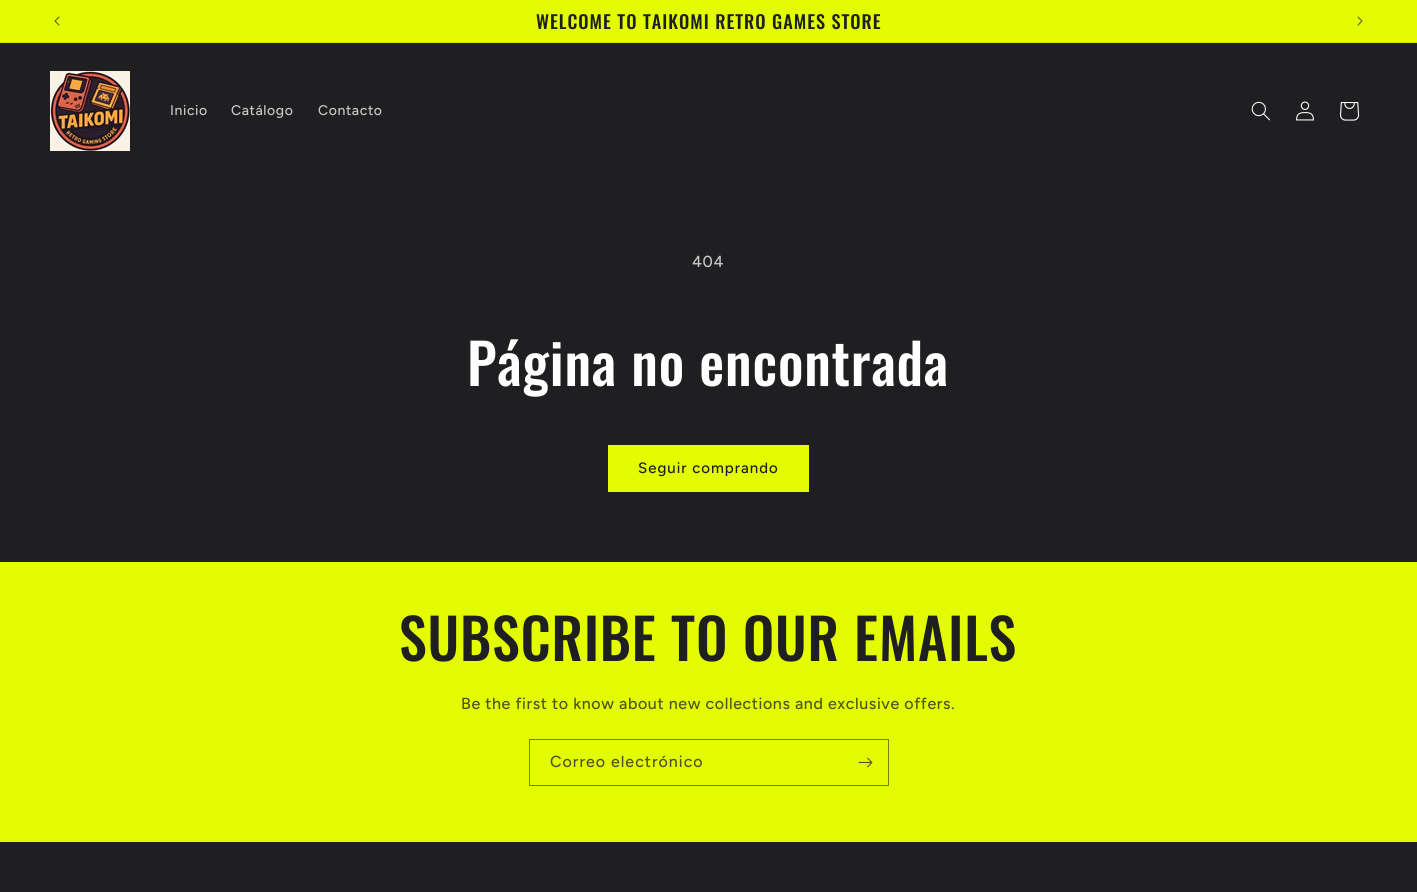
import math
import cairo

surface = cairo.ImageSurface(cairo.FORMAT_RGB24, 1417, 892)
c = cairo.Context(surface)
options = cairo.FontOptions()
options.set_hint_metrics(cairo.HINT_METRICS_OFF)
options.set_hint_style(cairo.HINT_STYLE_NONE)
c.set_font_options(options)
c.set_miter_limit(4)
def C(code):
 c.set_source_rgb(*(v / 255 for v in bytes.fromhex(code[-6:])))
def F(family, size, italic, bold):
 c.select_font_face(family, cairo.FONT_SLANT_ITALIC if italic else cairo.FONT_SLANT_NORMAL, cairo.FONT_WEIGHT_BOLD if bold else cairo.FONT_WEIGHT_NORMAL)
 c.set_font_size(size)
def L(x, y, s, letter, word):
 c.move_to(x, y)
 for ch in s:
  c.show_text(ch)
  c.rel_move_to(letter + word * (ch == ' '), 0)
def R(x, y, w, h):
 c.rectangle(x, y, w, h)
 c.fill()
def I(path, x, y, w, h):
 c.save()
 c.set_source_surface(cairo.ImageSurface.create_from_png(path), x, y)
 c.rectangle(x, y, w, h)
 c.fill()
 c.restore()
C('1f1f21')
c.paint()
C('e3fc02')
R(0,0,1417,42)
C('d3ea04')
R(0,42,1417,1)
I('1.png',54,16,6,10)
F('Oswald Medium',18.25,0,0)
C('1f1f21')
L(536,29,'WELCOME TO TAIKOMI RETRO GAMES STORE',1,0)
I('2.png',1357,16,6,10)
I('3.png',50,71,80,80)
F('Figtree Medium',14,0,0)
C('c7c7c8')
L(170,115,'Inicio',.6,0)
L(231,115,'Catálogo',.6,0)
L(318,115,'Contacto',.6,0)
I('4.png',1251,101,19,20)
I('5.png',1296,101,18,20)
I('6.png',1340,102,20,19)
F('Figtree Medium',16,0,0)
L(692,267,'404',.6,0)
F('Oswald Medium',56,0,0)
C('ffffff')
L(467,386,'Página no encontrada',.8,0)
C('e3fc02')
R(608,445,201,47)
F('Figtree Medium',15,0,0)
C('1f1f21')
L(638,473,'Seguir comprando',1,0)
C('e3fc02')
R(0,562,1417,280)
F('Oswald Medium',56,0,0)
C('1f1f21')
L(399,661,'SUBSCRIBE TO OUR EMAILS',.8,0)
F('Figtree Medium',16,0,0)
C('505619')
L(461,709,'Be the first to know about new collections and exclusive offers.',.6,0)
c.rectangle(529.5,739.5,359,46)
C('778213')
c.set_line_width(1)
c.stroke()
C('505619')
L(550,767,'Correo electrónico',1,0)
I('7.png',858,757,15,11)
surface.write_to_png('o.png')
